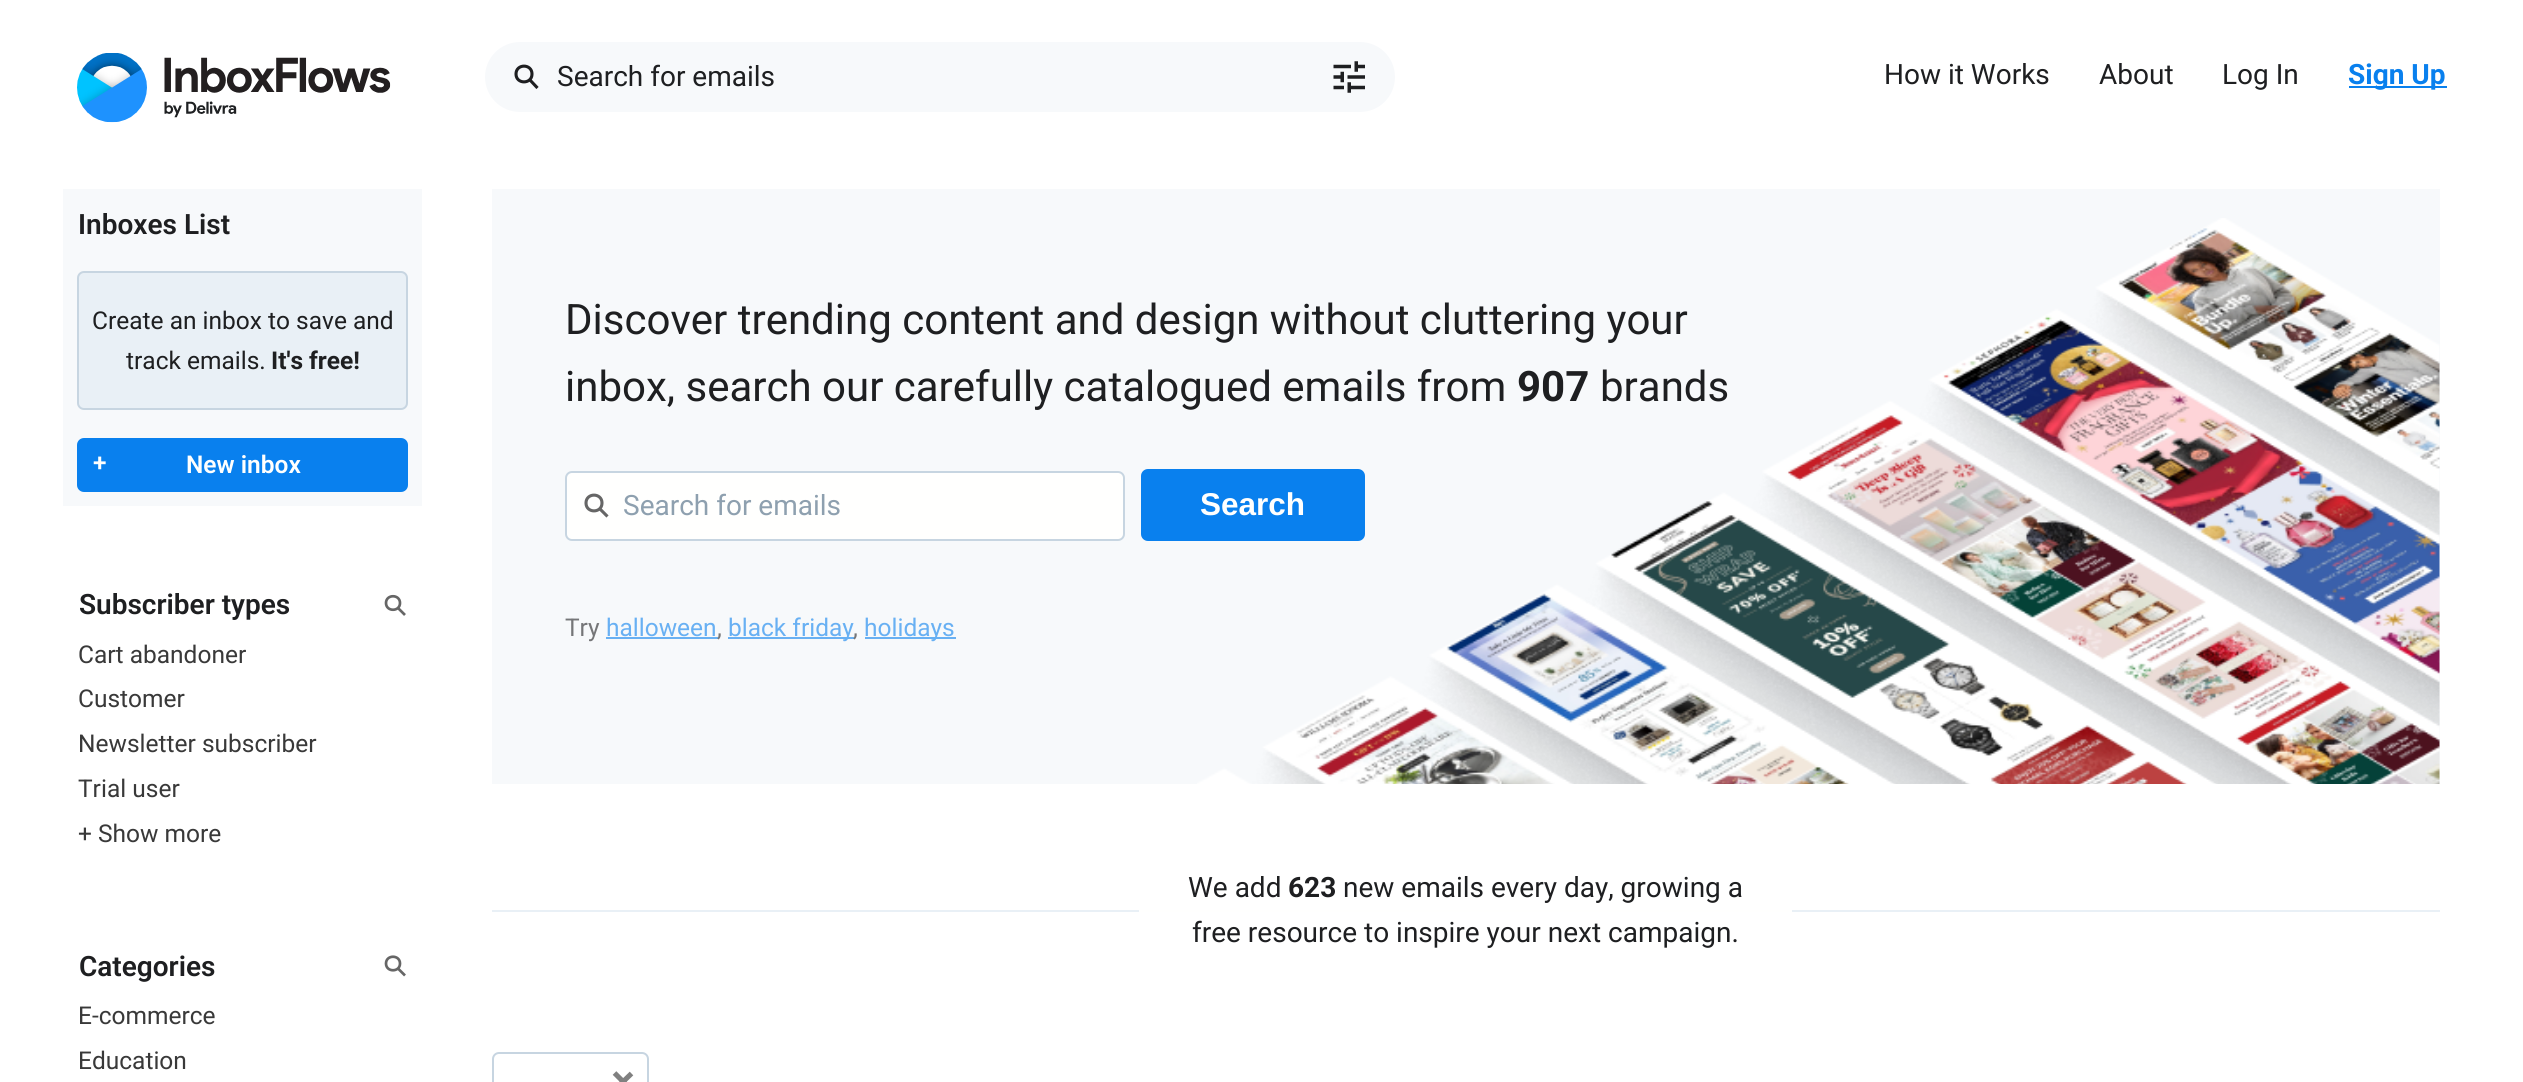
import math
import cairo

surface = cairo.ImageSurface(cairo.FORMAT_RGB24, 2523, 1082)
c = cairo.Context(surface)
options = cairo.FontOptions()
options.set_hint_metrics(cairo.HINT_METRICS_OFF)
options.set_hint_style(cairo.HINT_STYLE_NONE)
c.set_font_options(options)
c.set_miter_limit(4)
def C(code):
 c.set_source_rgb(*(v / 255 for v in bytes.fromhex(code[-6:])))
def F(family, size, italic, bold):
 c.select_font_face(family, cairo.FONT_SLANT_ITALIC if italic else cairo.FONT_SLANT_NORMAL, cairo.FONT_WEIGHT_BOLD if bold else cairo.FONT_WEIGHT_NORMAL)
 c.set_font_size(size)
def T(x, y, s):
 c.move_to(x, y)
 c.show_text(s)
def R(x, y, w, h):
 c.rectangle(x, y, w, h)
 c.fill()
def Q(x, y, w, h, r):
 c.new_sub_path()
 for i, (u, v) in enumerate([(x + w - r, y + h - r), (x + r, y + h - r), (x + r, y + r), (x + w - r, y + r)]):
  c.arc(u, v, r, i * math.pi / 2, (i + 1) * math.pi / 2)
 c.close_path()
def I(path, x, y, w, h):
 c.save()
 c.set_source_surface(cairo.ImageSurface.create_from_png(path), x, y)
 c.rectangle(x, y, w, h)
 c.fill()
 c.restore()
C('ffffff')
c.paint()
I('1.png',77,53,314,70)
C('f7f9fb')
Q(485,42,910,70,35)
c.fill()
c.new_path()
c.move_to(529.5,79.5)
c.line_to(537.5,88)
c.move_to(532,74)
c.curve_to(532,84.5,516,84.5,516,74)
c.curve_to(516,63.5,532,63.5,532,74)
c.close_path()
C('1e1f21')
c.set_line_width(3.1)
c.stroke()
F('Roboto',28,0,0)
T(557,86,'Search for emails')
I('2.png',1333,61,32,32)
T(1884,84,'How it Works')
T(2099,84,'About')
T(2222,84,'Log In')
C('0980ee')
R(2349,86,98,2)
F('Roboto',28,0,1)
T(2348,84,'Sign Up')
C('f7f9fb')
R(63,189,359,317)
F('Roboto SemiBold',28,0,0)
C('1e1f21')
T(78,234,'Inboxes List')
C('e9f0f6')
Q(78,272,329,137,6)
c.fill_preserve()
C('c7d5e1')
c.set_line_width(2)
c.stroke()
F('Roboto',24.5,0,0)
C('1e1f21')
T(92,329,'Create an inbox to save and')
T(126,369,'track emails.')
F('Roboto',24.5,0,1)
T(271,369,'It\'s free!')
C('0980ee')
Q(78,439,329,52,6)
c.fill_preserve()
c.stroke()
F('Roboto SemiBold',24.5,0,0)
C('fffffe')
T(93,471,'+')
T(186,473,'New inbox')
F('Roboto SemiBold',28,0,0)
C('1e1f21')
T(79,614,'Subscriber types')
c.new_path()
c.move_to(398,608)
c.line_to(405,615)
c.move_to(400,603)
c.curve_to(400,612,386,612,386,603)
c.curve_to(386,594,400,594,400,603)
c.close_path()
C('666666')
c.set_line_width(2.7)
c.stroke()
F('Roboto',24.5,0,0)
C('393939')
T(78,663,'Cart abandoner')
T(78,707,'Customer')
T(78,752,'Newsletter subscriber')
T(78,797,'Trial user')
T(78,842,'+ Show more')
F('Roboto SemiBold',28,0,0)
C('1e1f21')
T(79,976,'Categories')
c.new_path()
c.move_to(398,968.5)
c.line_to(405,975.5)
c.move_to(400,963.5)
c.curve_to(400,972.5,386,972.5,386,963.5)
c.curve_to(386,954.5,400,954.5,400,963.5)
c.close_path()
C('666666')
c.stroke()
F('Roboto',24.5,0,0)
C('393939')
T(78,1024,'E-commerce')
T(78,1069,'Education')
C('f7f9fb')
R(492,189,1948,595)
I('3.png',1197,218,1243,566)
F('Roboto',42,0,0)
C('1e1f21')
T(565,334,'Discover trending content and design without cluttering your')
T(565,401,'inbox, search our carefully catalogued emails from')
F('Roboto',42,0,1)
T(1517,401,'907')
F('Roboto',42,0,0)
T(1600,401,'brands')
C('fffffe')
Q(566,472,558,68,6)
c.fill_preserve()
C('c7d5e1')
c.set_line_width(2)
c.stroke()
c.new_path()
c.move_to(599.5,508.5)
c.line_to(607.5,516.5)
c.move_to(602,503)
c.curve_to(602,513.5,586,513.5,586,503)
c.curve_to(586,492.5,602,492.5,602,503)
c.close_path()
C('666666')
c.set_line_width(3.1)
c.stroke()
F('Roboto',28,0,0)
C('8ea0af')
T(623,515,'Search for emails')
C('0980ee')
Q(1143,471,220,68,5)
c.fill_preserve()
c.set_line_width(4)
c.stroke()
F('Liberation Sans',31.5,0,1)
C('fffffe')
T(1200,515,'Search')
F('Roboto',24.5,0,0)
C('757678')
T(565,636,'Try')
C('68b0f3')
T(606,636,'halloween')
R(606,637,112,2)
C('757678')
T(717,636,',')
C('68b0f3')
R(728,637,126,2)
T(728,636,'black friday')
C('757678')
T(853,636,',')
C('68b0f3')
R(865,637,91,2)
T(864,636,'holidays')
C('e9f0f6')
R(492,910,1948,2)
C('fffffe')
R(1139,910,653,2)
F('Roboto',28,0,0)
C('1e1f21')
T(1188,897,'We add')
F('Roboto',28,0,1)
T(1288,897,'623')
F('Roboto',28,0,0)
T(1343,897,'new emails every day, growing a')
T(1192,942,'free resource to inspire your next campaign.')
Q(493,1053,155,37,6)
C('c7d5e1')
c.set_line_width(2)
c.stroke()
c.new_path()
c.move_to(614.5,1073)
c.line_to(631.5,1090)
c.move_to(614.5,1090)
c.line_to(631.5,1073.5)
C('808080')
c.set_line_width(5.1)
c.stroke()
surface.write_to_png('o.png')
